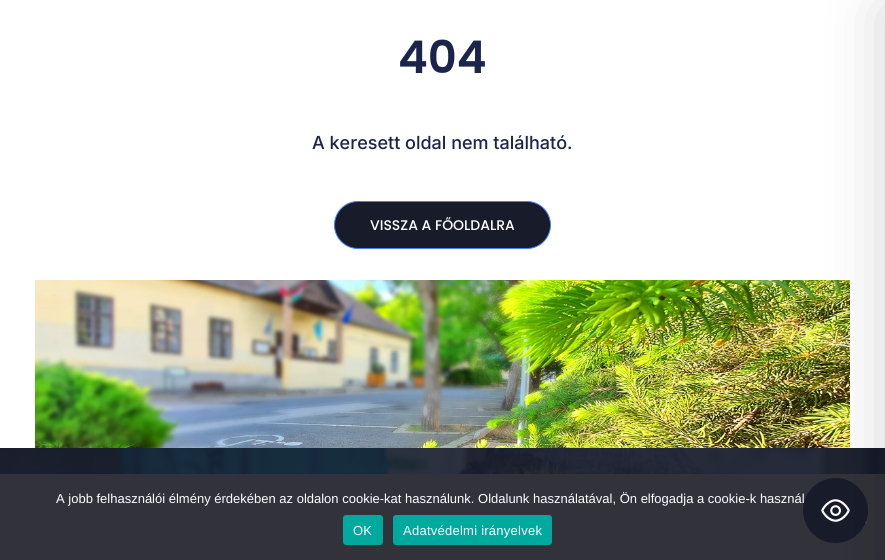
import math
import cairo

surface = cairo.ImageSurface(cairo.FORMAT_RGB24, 885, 560)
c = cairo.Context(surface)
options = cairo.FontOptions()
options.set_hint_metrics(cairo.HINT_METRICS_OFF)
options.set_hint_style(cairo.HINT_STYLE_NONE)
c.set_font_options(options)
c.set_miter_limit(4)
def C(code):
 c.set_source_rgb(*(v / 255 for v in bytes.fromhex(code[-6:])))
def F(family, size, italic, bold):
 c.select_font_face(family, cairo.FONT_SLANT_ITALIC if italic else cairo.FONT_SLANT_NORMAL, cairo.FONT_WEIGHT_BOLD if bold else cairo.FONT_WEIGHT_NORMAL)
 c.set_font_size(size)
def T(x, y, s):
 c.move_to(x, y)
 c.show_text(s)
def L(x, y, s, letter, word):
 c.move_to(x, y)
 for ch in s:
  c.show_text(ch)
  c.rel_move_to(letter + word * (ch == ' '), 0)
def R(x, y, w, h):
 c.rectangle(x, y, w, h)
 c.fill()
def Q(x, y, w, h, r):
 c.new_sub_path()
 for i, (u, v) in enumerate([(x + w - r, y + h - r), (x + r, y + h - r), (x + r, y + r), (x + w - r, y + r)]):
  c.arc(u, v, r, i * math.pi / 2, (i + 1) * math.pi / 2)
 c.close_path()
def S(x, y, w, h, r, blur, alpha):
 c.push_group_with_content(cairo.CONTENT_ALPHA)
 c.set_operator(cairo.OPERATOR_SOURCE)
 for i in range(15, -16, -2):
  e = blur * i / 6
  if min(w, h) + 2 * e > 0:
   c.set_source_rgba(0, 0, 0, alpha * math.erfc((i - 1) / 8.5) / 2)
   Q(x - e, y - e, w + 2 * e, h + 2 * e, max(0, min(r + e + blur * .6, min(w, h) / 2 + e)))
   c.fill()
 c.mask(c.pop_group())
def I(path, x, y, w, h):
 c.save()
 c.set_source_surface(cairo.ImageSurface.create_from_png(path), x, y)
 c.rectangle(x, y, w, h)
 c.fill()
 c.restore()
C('ffffff')
c.paint()
F('Poppins SemiBold',45,0,0)
C('1c244b')
T(398,73,'404')
F('Inter Medium',18,0,0)
T(312,149,'A keresett oldal nem található.')
C('181b2a')
Q(334.5,201.5,216,47,23.5)
c.fill_preserve()
C('467ff7')
c.set_line_width(1)
c.stroke()
F('Poppins Medium',14,0,0)
C('ffffff')
T(370,230,'VISSZA A FŐOLDALRA')
I('1.png',35,280,815,168)
I('2.png',0,448,885,26)
C('32323a')
R(0,474,885,86)
C('59595d')
c.new_path()
c.move_to(855,513)
c.line_to(856.5,511.5)
c.line_to(867,522)
c.line_to(865.5,523.5)
c.close_path()
c.fill()
F('Liberation Sans',13,0,0)
C('ffffff')
T(56,503,'A jobb felhasználói élmény érdekében az oldalon cookie-kat használunk. Oldalunk használatával, Ön elfogadja a cookie-k használ')
C('181b2a')
c.new_path()
c.arc(835.5,510.5,32.5,0,2 * math.pi)
c.fill()
I('3.png',821,499,29,23)
C('000000')
S(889,10,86,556,0,30,.2)
C('00a99d')
Q(343,515,40,30,3)
c.fill()
C('ffffff')
L(353,535,'OK',.25,0)
C('00a99d')
Q(393,515,159,30,3)
c.fill()
C('ffffff')
L(403,535,'Adatvédelmi irányelvek',.25,0)
surface.write_to_png('o.png')
